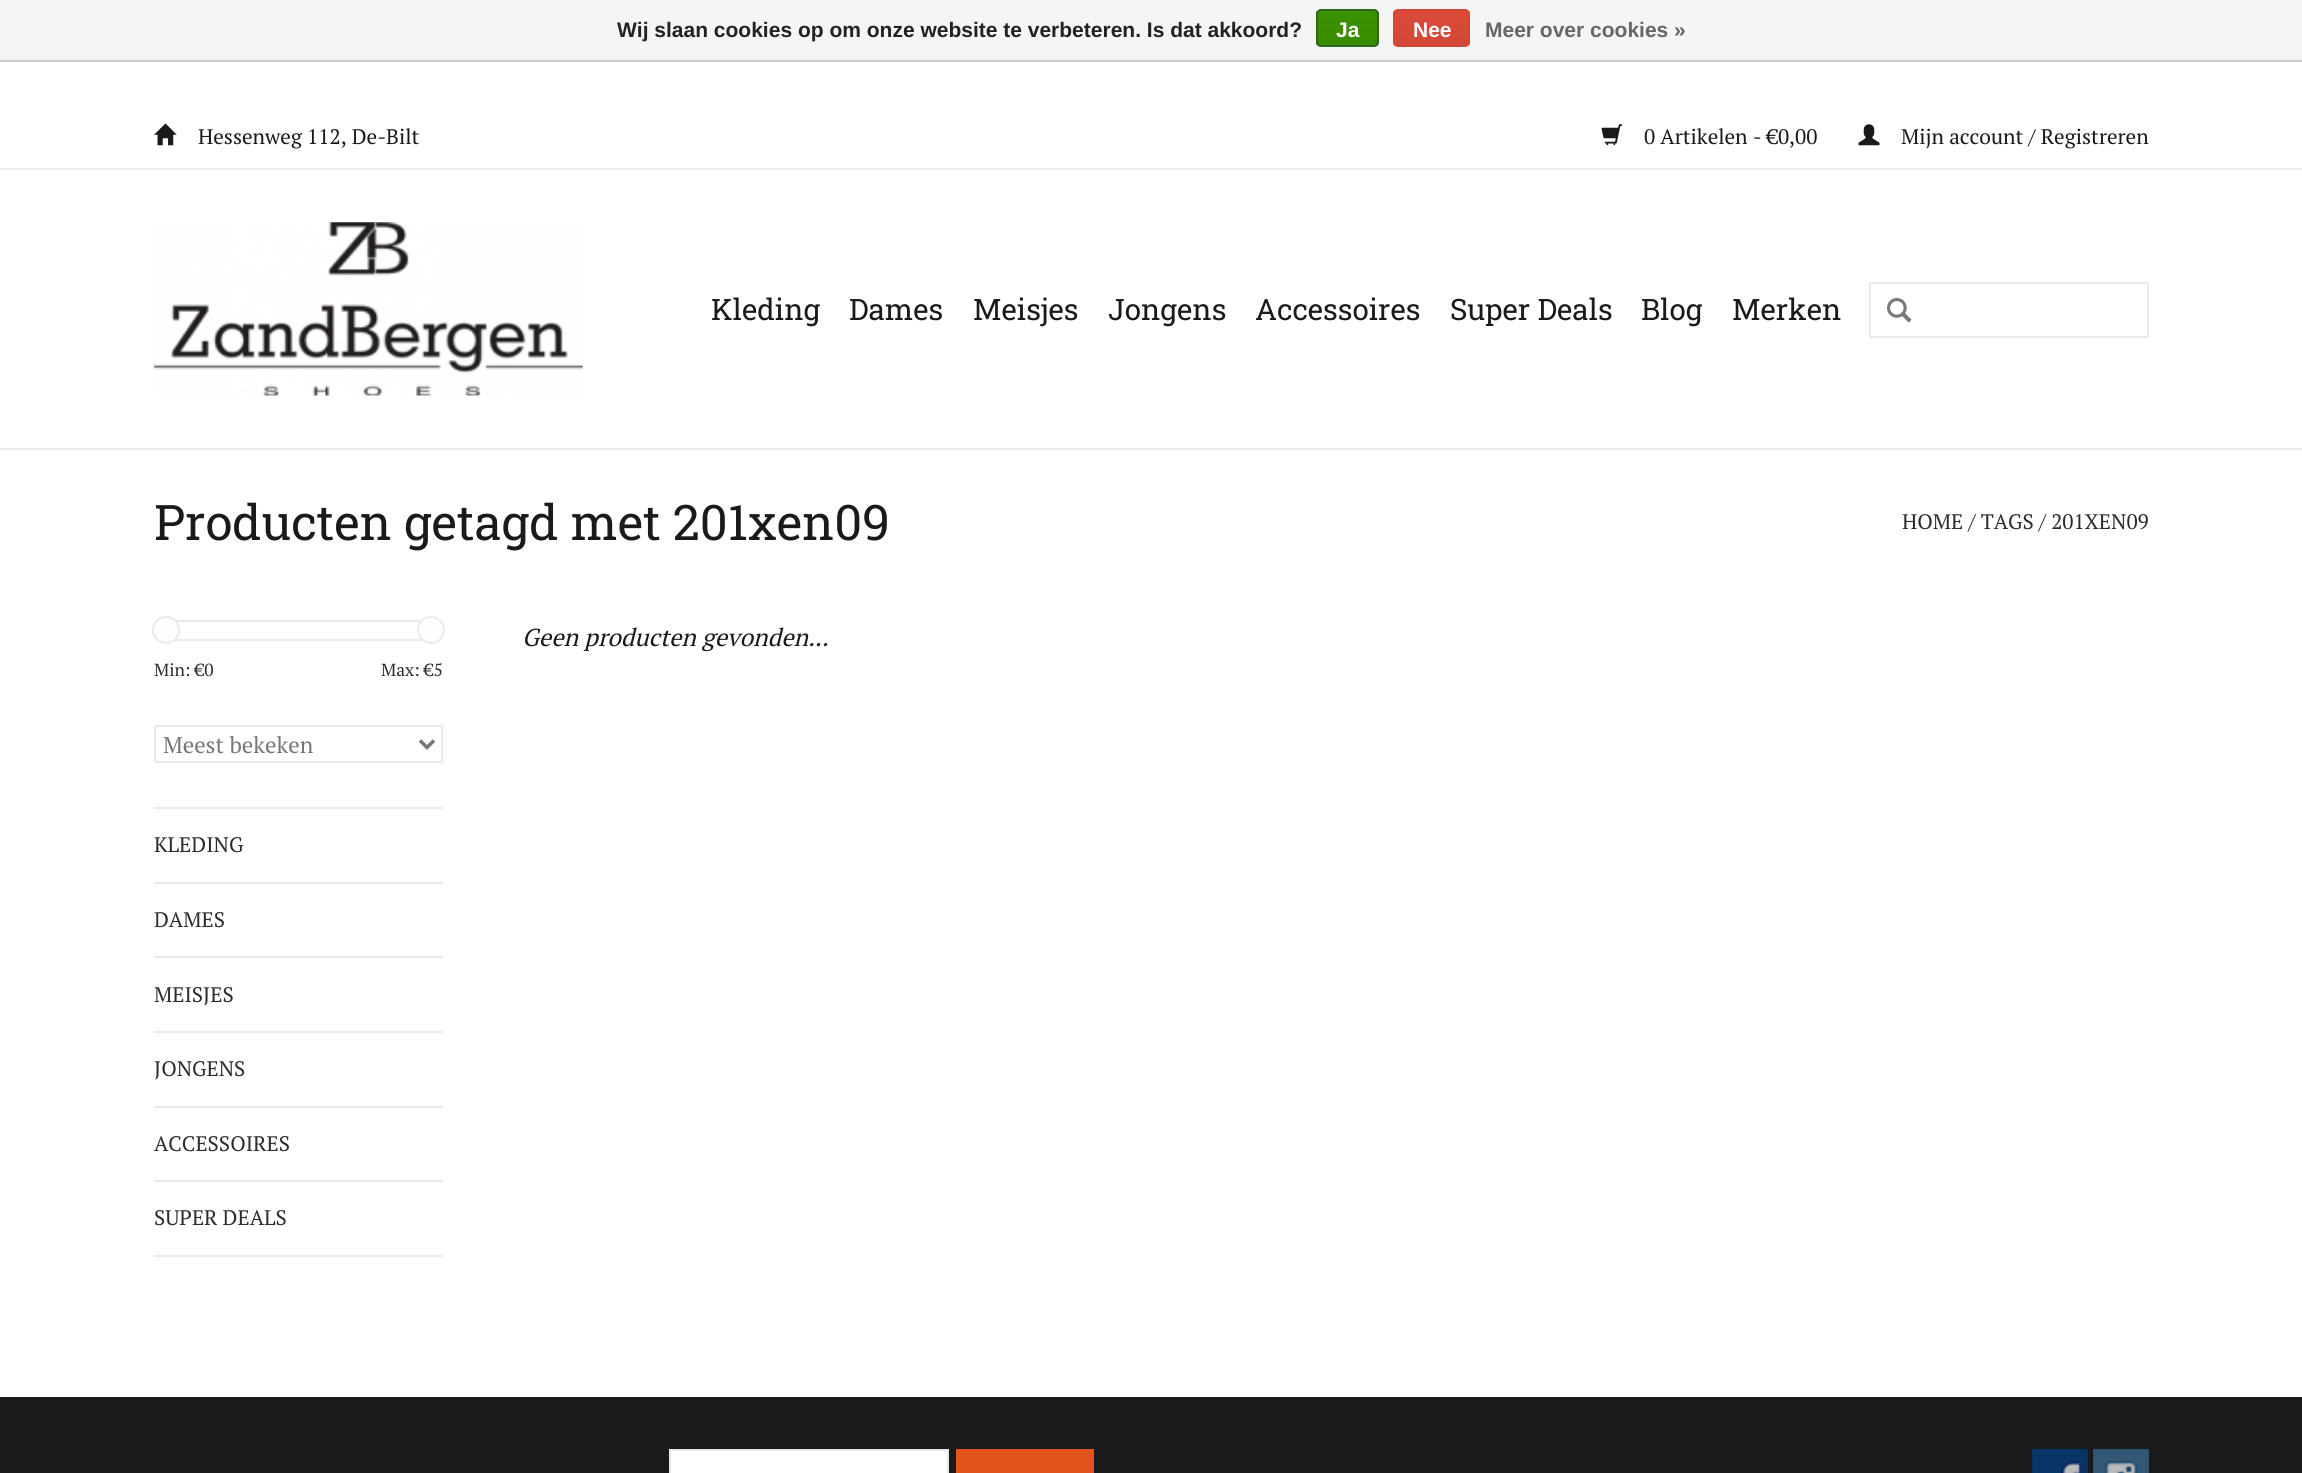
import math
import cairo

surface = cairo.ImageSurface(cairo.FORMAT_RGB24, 2302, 1473)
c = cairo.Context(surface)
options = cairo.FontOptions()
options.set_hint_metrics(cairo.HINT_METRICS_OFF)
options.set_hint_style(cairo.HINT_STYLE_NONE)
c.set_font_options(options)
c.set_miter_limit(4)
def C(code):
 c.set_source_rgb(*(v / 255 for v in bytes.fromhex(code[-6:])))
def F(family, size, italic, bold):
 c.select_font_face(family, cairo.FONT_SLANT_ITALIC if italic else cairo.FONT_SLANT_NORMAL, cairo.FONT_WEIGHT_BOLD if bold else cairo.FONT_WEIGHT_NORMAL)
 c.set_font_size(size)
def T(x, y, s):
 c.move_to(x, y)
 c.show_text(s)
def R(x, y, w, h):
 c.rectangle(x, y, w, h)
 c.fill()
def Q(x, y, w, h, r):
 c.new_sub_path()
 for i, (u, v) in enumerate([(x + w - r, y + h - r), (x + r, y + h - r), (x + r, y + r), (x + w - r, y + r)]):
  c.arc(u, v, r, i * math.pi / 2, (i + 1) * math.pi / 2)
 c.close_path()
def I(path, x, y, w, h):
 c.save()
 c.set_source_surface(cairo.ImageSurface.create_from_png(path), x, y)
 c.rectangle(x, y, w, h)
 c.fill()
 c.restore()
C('ffffff')
c.paint()
C('f5f5f5')
R(0,0,2302,60)
C('cccccc')
R(0,60,2302,2)
F('Liberation Sans',21,0,1)
C('222222')
T(617,37,'Wij slaan cookies op om onze website te verbeteren. Is dat akkoord?')
c.save()
Q(1316,9,63,38,5)
c.clip()
gradient = cairo.LinearGradient(1348,10,1348,46)
gradient.add_color_stop_rgba(0,0.235,0.576,0,1)
gradient.add_color_stop_rgba(1,0.224,0.541,0,1)
c.set_source(gradient)
R(1316,11,63,35)
c.restore()
Q(1317,10,61,36,4)
C('29691d')
c.stroke()
C('ffffff')
T(1336,37,'Ja')
c.save()
Q(1393,9,77,38,5)
c.clip()
gradient = cairo.LinearGradient(1432,10,1432,46)
gradient.add_color_stop_rgba(0,0.863,0.29,0.22,1)
gradient.add_color_stop_rgba(1,0.82,0.282,0.212,1)
c.set_source(gradient)
R(1393,11,77,35)
c.restore()
Q(1394,10,75,36,4)
C('d14836')
c.stroke()
C('ffffff')
T(1413,37,'Nee')
C('666666')
T(1485,37,'Meer over cookies »')
C('eaeaea')
R(0,448,2302,2)
C('ededed')
R(0,168,2302,2)
I('1.png',154,123,23,23)
F('PT Serif',21,0,0)
C('1a1a1a')
T(198,144,'Hessenweg 112, De-Bilt')
I('2.png',1601,124,22,22)
T(1644,144,'0 Artikelen - €0,00')
I('3.png',1858,124,22,22)
T(1901,144,'Mijn account / Registreren')
I('4.png',154,222,429,174)
F('Roboto Slab',29.5,0,0)
T(711,320,'Kleding')
T(849,320,'Dames')
T(973,320,'Meisjes')
T(1108,320,'Jongens')
T(1255,320,'Accessoires')
T(1450,320,'Super Deals')
T(1641,320,'Blog')
T(1732,320,'Merken')
c.rectangle(1870,283,278,54)
C('eaeaea')
c.stroke()
I('5.png',1887,298,25,25)
F('Roboto Slab',49,0,0)
C('1a1a1a')
T(154,540,'Producten getagd met 201xen09')
F('PT Serif',21,0,0)
C('2c2c2c')
T(1902,529,'HOME / TAGS / 201XEN09')
F('PT Serif',24.5,1,0)
C('1a1a1a')
T(522,646,'Geen producten gevonden...')
C('eaeaea')
R(154,807,289,2)
c.rectangle(169,621,262,19)
c.stroke()
C('fefefe')
c.arc(166,630,13,0,2 * math.pi)
c.fill_preserve()
C('eaeaea')
c.stroke()
C('fefefe')
c.arc(431,630,13,0,2 * math.pi)
c.fill_preserve()
C('eaeaea')
c.stroke()
F('PT Serif',17.5,0,0)
C('2c2c2c')
T(154,676,'Min: €0')
T(381,676,'Max: €5')
c.rectangle(155,726,287,36)
C('eaeaea')
c.stroke()
c.new_path()
c.move_to(420,740.5)
c.line_to(427,747.5)
c.line_to(434,740.5)
C('777777')
c.set_line_width(3.5)
c.stroke()
F('PT Serif',22.75,0,0)
T(163,753,'Meest bekeken')
C('eaeaea')
R(154,882,289,2)
F('PT Serif',21,0,0)
C('2c2c2c')
T(154,852,'KLEDING')
C('eaeaea')
R(154,956,289,2)
C('2c2c2c')
T(154,927,'DAMES')
C('eaeaea')
R(154,1031,289,2)
C('2c2c2c')
T(154,1002,'MEISJES')
C('eaeaea')
R(154,1106,289,2)
C('2c2c2c')
T(154,1076,'JONGENS')
C('eaeaea')
R(154,1180,289,2)
C('2c2c2c')
T(154,1151,'ACCESSOIRES')
C('eaeaea')
R(154,1255,289,2)
C('2c2c2c')
T(154,1225,'SUPER DEALS')
C('1a1a1a')
R(0,1399,2302,74)
C('181818')
R(0,1397,2302,2)
C('ffffff')
c.rectangle(670,1450,278,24)
c.fill_preserve()
C('e9e9e9')
c.set_line_width(2)
c.stroke()
C('e4531d')
R(956,1449,138,24)
I('6.png',2031,1449,57,24)
I('7.png',2093,1449,56,24)
surface.write_to_png('o.png')
